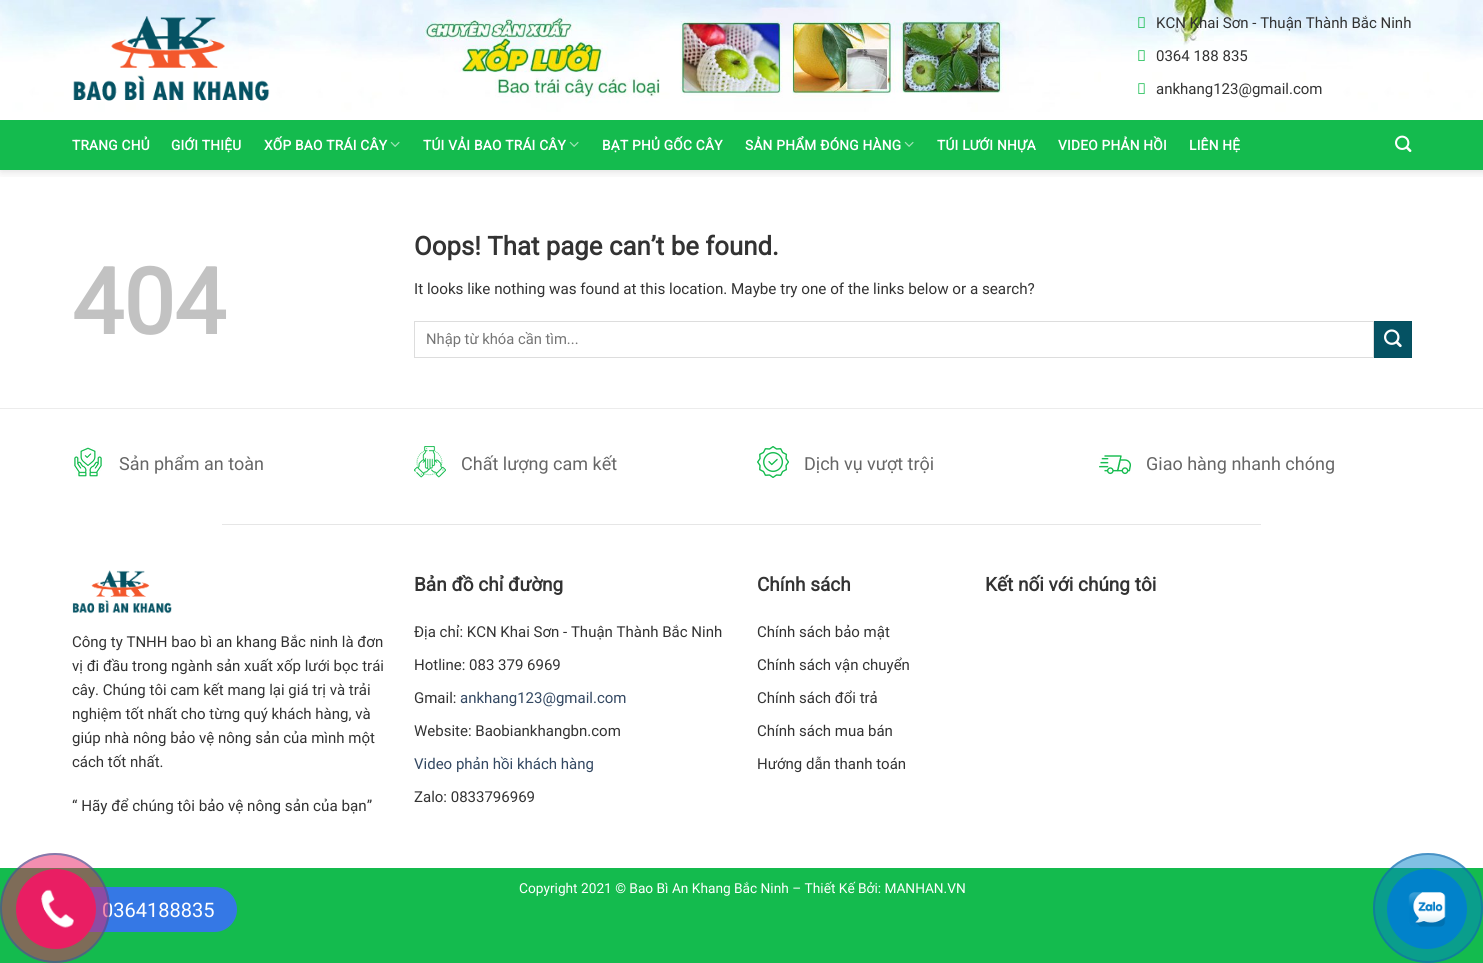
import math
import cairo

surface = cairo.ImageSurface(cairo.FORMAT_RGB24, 1483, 963)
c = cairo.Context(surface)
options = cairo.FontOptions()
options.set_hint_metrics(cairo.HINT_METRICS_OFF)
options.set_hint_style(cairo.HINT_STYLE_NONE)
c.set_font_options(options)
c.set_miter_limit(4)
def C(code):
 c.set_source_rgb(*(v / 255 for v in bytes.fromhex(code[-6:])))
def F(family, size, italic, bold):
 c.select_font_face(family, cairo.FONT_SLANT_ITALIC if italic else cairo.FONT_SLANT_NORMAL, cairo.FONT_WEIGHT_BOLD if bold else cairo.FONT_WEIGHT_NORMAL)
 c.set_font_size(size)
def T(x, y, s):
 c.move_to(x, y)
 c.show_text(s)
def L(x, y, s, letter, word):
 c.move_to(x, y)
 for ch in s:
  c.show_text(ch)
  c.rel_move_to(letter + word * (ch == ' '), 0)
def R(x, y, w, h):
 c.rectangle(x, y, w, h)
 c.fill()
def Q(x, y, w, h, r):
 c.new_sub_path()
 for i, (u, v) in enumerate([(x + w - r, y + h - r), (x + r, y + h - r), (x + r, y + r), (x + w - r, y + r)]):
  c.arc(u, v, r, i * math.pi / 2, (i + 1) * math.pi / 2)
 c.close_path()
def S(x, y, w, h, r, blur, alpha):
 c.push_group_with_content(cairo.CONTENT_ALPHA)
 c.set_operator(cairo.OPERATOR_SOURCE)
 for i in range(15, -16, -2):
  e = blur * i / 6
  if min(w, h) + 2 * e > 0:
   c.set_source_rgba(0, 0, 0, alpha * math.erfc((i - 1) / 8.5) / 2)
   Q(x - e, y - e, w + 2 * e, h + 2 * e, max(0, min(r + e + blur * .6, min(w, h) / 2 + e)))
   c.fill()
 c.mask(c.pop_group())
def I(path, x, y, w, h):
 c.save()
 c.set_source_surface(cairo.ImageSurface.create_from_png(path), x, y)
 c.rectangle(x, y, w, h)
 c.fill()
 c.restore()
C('14bb4e')
c.paint()
C('ffffff')
R(0,112,1483,756)
c.save()
c.rectangle(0,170,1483,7)
c.clip()
C('000000')
S(1,1,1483,170,0,5,.15)
c.restore()
I('1.png',0,0,1483,112)
I('2.png',73,16,197,85)
I('3.png',1138,17,7,11)
F('Roboto',15,0,0)
C('333333')
T(1156,28,'KCN Khai Sơn - Thuận Thành Bắc Ninh')
I('4.png',1138,50,7,11)
T(1156,61,'0364 188 835')
I('5.png',1138,83,7,11)
T(1156,94,'ankhang123@gmail.com')
C('14bb4e')
R(0,120,1483,50)
F('Roboto',13.7,0,1)
C('ffffff')
L(72,150,'TRANG CHỦ',.25,0)
L(171,150,'GIỚI THIỆU',.25,0)
L(264,150,'XỐP BAO TRÁI CÂY',.25,0)
I('6.png',390,141,10,6)
L(423,150,'TÚI VẢI BAO TRÁI CÂY',.25,0)
I('6.png',569,141,10,6)
L(602,150,'BẠT PHỦ GỐC CÂY',.25,0)
L(745,150,'SẢN PHẨM ĐÓNG HÀNG',.25,0)
I('6.png',904,141,10,6)
L(937,150,'TÚI LƯỚI NHỰA',.25,0)
L(1058,150,'VIDEO PHẢN HỒI',.25,0)
L(1189,150,'LIÊN HỆ',.25,0)
I('7.png',1395,135,17,17)
F('Roboto',91,0,1)
C('c2c2c2')
T(72,334,'404')
F('Roboto',25.8,0,1)
C('333333')
T(414,255,'Oops! That page can’t be found.')
F('Roboto',15.2,0,0)
T(414,294,'It looks like nothing was found at this location. Maybe try one of the links below or a search?')
c.rectangle(414.5,321.5,959,36)
C('dddddd')
c.set_line_width(1)
c.stroke()
F('Roboto',14.75,0,0)
C('757575')
T(426,344,'Nhập từ khóa cần tìm...')
C('055263')
c.rectangle(1374.5,321.5,37,36)
c.fill_preserve()
C('054e5e')
c.stroke()
I('8.png',1384,329,18,19)
C('ececec')
R(0,408,1483,1)
I('9.png',74,447,28,30)
F('Roboto',18,0,0)
C('666666')
T(119,470,'Sản phẩm an toàn')
I('10.png',414,446,32,32)
T(461,470,'Chất lượng cam kết')
I('11.png',757,446,32,32)
T(804,470,'Dịch vụ vượt trội')
I('12.png',1099,455,32,20)
T(1146,470,'Giao hàng nhanh chóng')
C('e6e6e6')
R(222,524,1039,1)
I('13.png',72,570,100,44)
F('Roboto',15,0,0)
C('333333')
T(72,647,'Công ty TNHH bao bì an khang Bắc ninh là đơn')
T(72,671,'vị đi đầu trong ngành sản xuất xốp lưới bọc trái')
T(72,695,'cây. Chúng tôi cam kết mang lại giá trị và trải')
T(72,719,'nghiệm tốt nhất cho từng quý khách hàng, và')
T(72,743,'giúp nhà nông bảo vệ nông sản của mình một')
T(72,767,'cách tốt nhất.')
F('Roboto',15.2,0,0)
T(72,811,'“ Hãy để chúng tôi bảo vệ nông sản của bạn”')
F('Roboto',19,0,1)
T(414,591,'Bản đồ chỉ đường')
F('Roboto',15,0,0)
T(414,637,'Địa chỉ: KCN Khai Sơn - Thuận Thành Bắc Ninh')
T(414,670,'Hotline: 083 379 6969')
T(414,703,'Gmail:')
C('334862')
T(460,703,'ankhang123@gmail.com')
C('333333')
T(414,736,'Website: Baobiankhangbn.com')
C('334862')
T(414,769,'Video phản hồi khách hàng')
C('333333')
T(414,802,'Zalo: 0833796969')
F('Roboto',19,0,1)
T(757,591,'Chính sách')
F('Roboto',15,0,0)
T(757,637,'Chính sách bảo mật')
T(757,670,'Chính sách vận chuyển')
T(757,703,'Chính sách đổi trả')
T(757,736,'Chính sách mua bán')
T(757,769,'Hướng dẫn thanh toán')
F('Roboto',19,0,1)
T(985,591,'Kết nối với chúng tôi')
F('Roboto',13.7,0,0)
C('ffffff')
T(519,893,'Copyright 2021 © Bao Bì An Khang Bắc Ninh – Thiết Kế Bởi: MANHAN.VN')
C('3578e5')
Q(52,887,185,45,22.5)
c.fill()
F('Roboto',20,0,0)
C('ffffff')
T(102,917,'0364188835')
c.set_source_rgba(0.914,0.118,0.388,0.5)
c.new_path()
c.arc(55,908,55,0,2 * math.pi)
c.fill()
c.arc(55,908,54,0,2 * math.pi)
c.set_source_rgba(0.082,0.392,0.655,0.5)
c.set_line_width(2)
c.stroke()
C('e91e63')
c.arc(56,909,40,0,2 * math.pi)
c.fill()
I('14.png',41,889,33,39)
c.set_source_rgba(0.004,0.51,0.792,0.5)
c.arc(1428,908,55,0,2 * math.pi)
c.fill()
c.arc(1428,908,54,0,2 * math.pi)
c.set_source_rgba(0.082,0.392,0.655,0.5)
c.stroke()
C('0182ca')
c.arc(1427,909,40,0,2 * math.pi)
c.fill()
I('15.png',1408,892,38,35)
surface.write_to_png('o.png')
